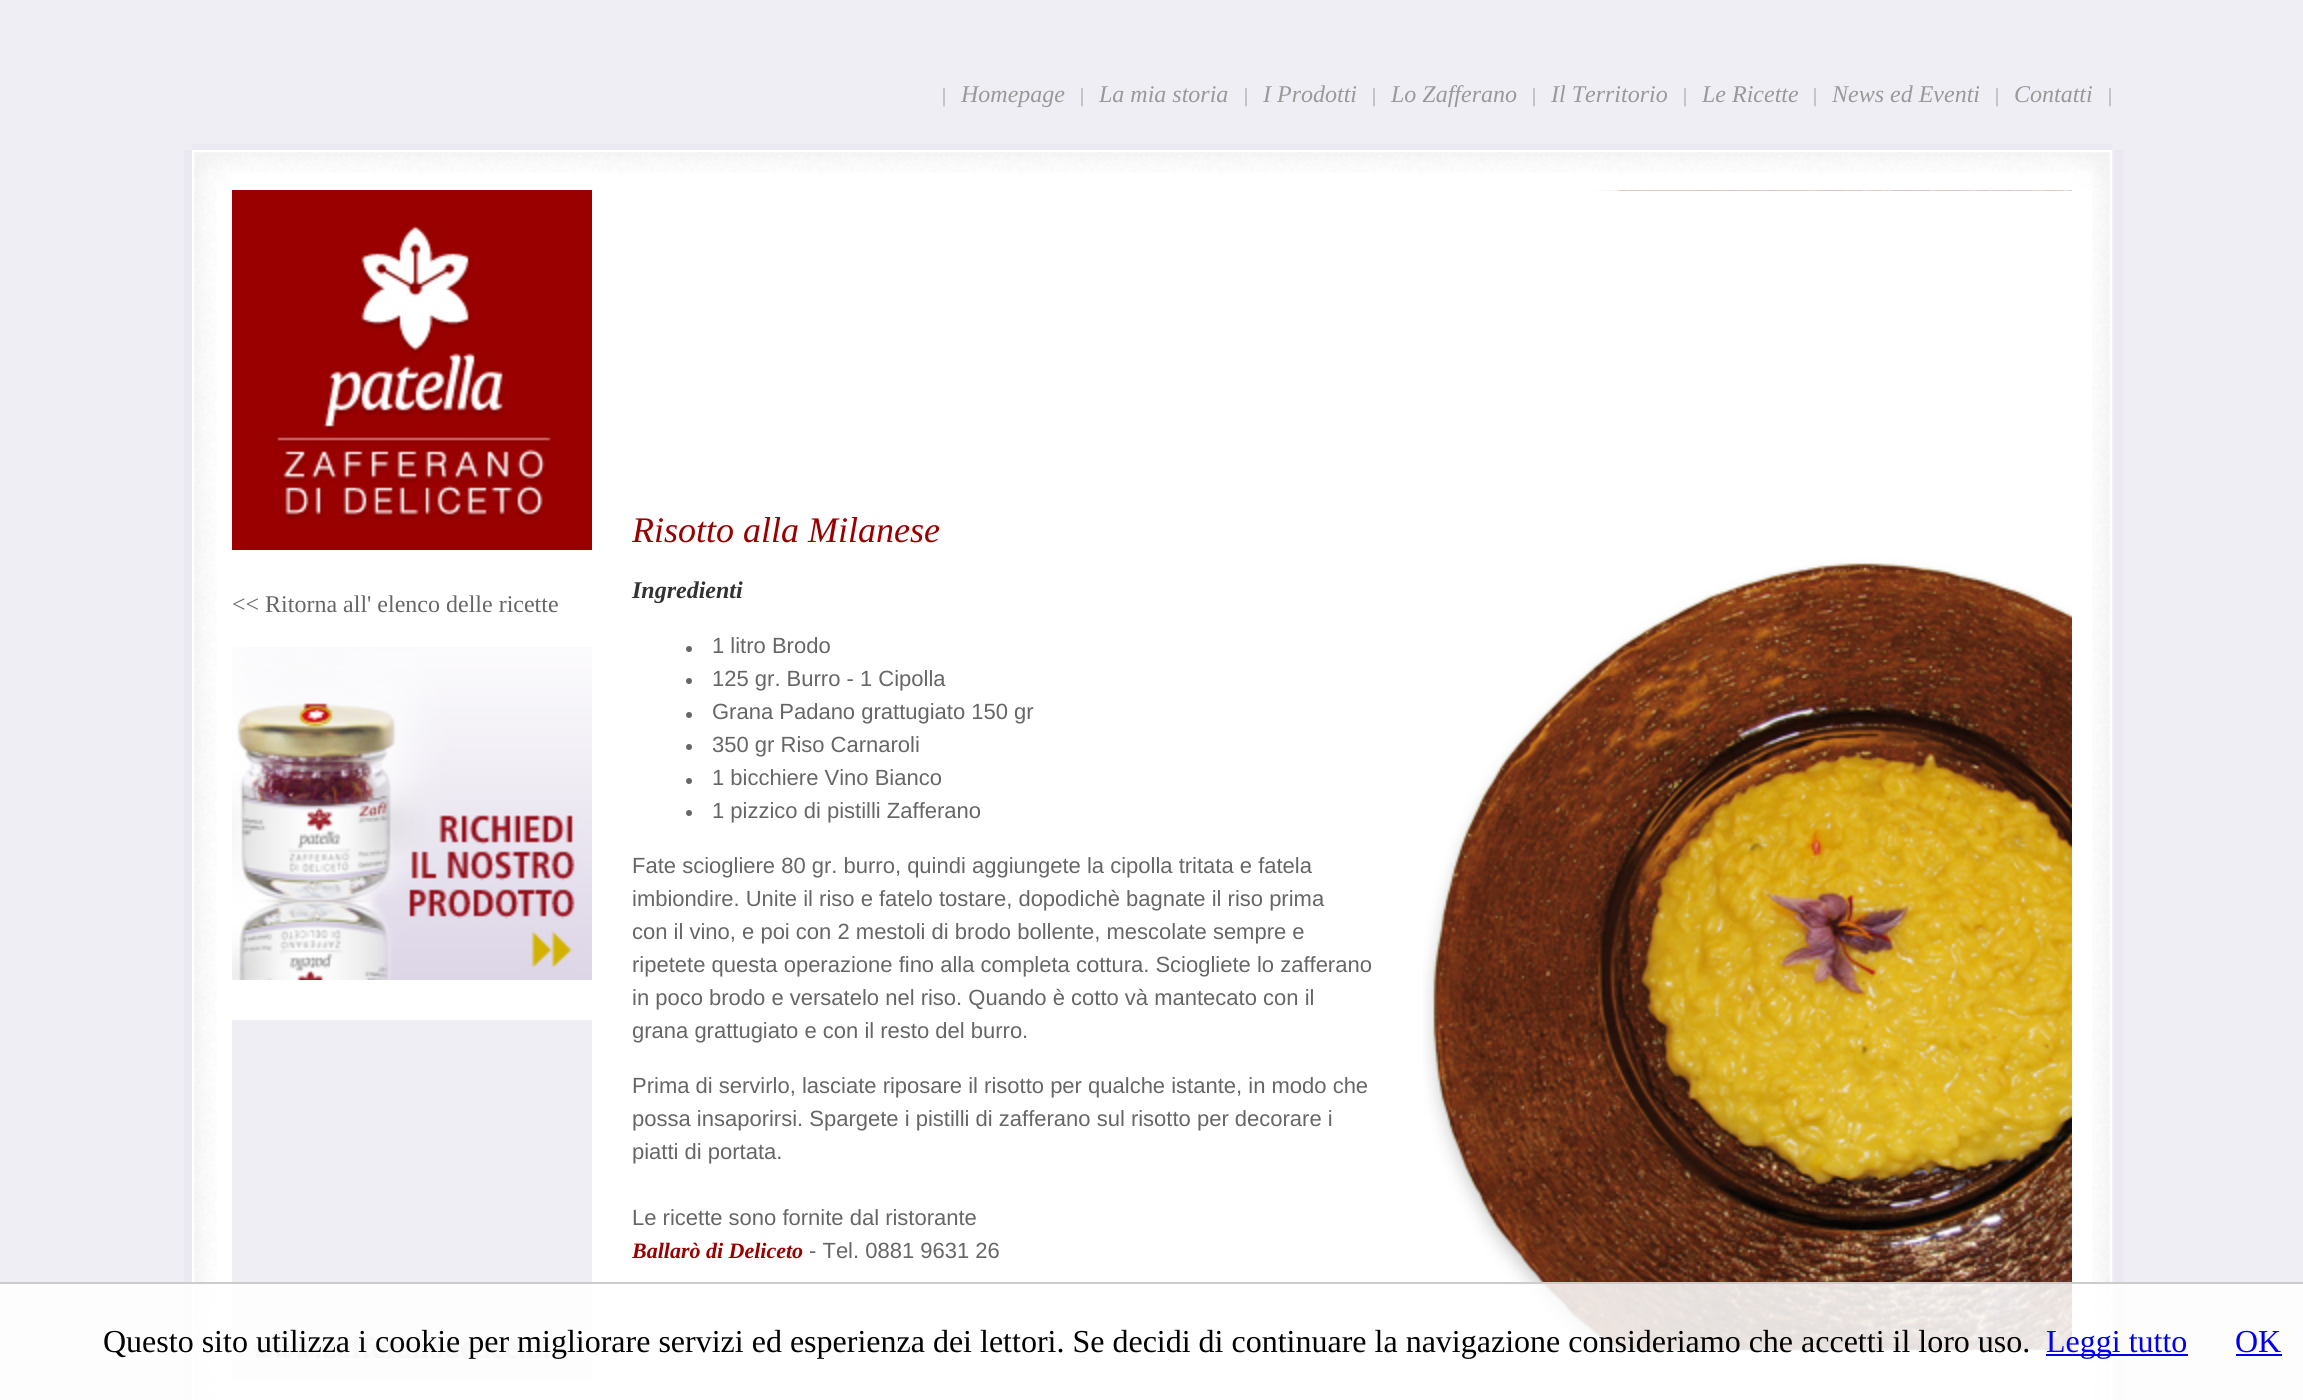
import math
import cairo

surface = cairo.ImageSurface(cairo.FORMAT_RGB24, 2303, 1400)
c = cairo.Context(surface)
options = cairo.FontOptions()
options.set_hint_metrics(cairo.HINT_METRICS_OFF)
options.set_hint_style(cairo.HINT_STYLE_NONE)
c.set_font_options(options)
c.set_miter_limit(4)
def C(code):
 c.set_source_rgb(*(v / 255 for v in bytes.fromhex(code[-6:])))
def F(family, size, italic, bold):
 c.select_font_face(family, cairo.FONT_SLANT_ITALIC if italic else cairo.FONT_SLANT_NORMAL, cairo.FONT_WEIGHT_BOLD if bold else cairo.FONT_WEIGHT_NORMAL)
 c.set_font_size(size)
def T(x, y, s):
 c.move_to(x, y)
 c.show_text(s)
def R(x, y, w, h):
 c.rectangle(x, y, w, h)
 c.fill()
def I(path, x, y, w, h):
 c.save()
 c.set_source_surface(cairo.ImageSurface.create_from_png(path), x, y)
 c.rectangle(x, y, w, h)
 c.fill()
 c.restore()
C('f0eef5')
c.paint()
F('Liberation Serif',20,0,0)
C('999999')
T(942,102,'|')
F('Liberation Serif',24,1,0)
T(961,102,'Homepage')
F('Liberation Serif',20,0,0)
T(1080,102,'|')
F('Liberation Serif',24,1,0)
T(1099,102,'La mia storia')
F('Liberation Serif',20,0,0)
T(1244,102,'|')
F('Liberation Serif',24,1,0)
T(1263,102,'I Prodotti')
F('Liberation Serif',20,0,0)
T(1372,102,'|')
F('Liberation Serif',24,1,0)
T(1391,102,'Lo Zafferano')
F('Liberation Serif',20,0,0)
T(1532,102,'|')
F('Liberation Serif',24,1,0)
T(1551,102,'Il Territorio')
F('Liberation Serif',20,0,0)
T(1683,102,'|')
F('Liberation Serif',24,1,0)
T(1702,102,'Le Ricette')
F('Liberation Serif',20,0,0)
T(1813,102,'|')
F('Liberation Serif',24,1,0)
T(1832,102,'News ed Eventi')
F('Liberation Serif',20,0,0)
T(1995,102,'|')
F('Liberation Serif',24,1,0)
T(2014,102,'Contatti')
F('Liberation Serif',20,0,0)
T(2108,102,'|')
C('ebe9f2')
R(192,144,1920,6)
C('eae8f1')
R(184,150,8,1250)
C('ffffff')
R(192,150,1920,1250)
I('1.png',194,152,38,38)
I('2.png',232,152,1840,21)
I('3.png',2072,152,38,38)
I('4.png',194,190,23,1190)
I('5.png',1423,190,649,1161)
F('Liberation Serif',24,0,0)
C('666666')
T(232,612,'<< Ritorna all\' elenco delle ricette')
I('6.png',232,647,360,333)
I('7.png',232,190,360,360)
F('Liberation Serif',36,1,0)
C('990000')
T(632,542,'Risotto alla Milanese')
F('Liberation Serif',24,1,1)
C('333333')
T(632,598,'Ingredienti')
C('666666')
c.new_path()
c.arc(689,649,3,0,2 * math.pi)
c.fill()
F('Liberation Sans',22,0,0)
T(712,653,'1 litro Brodo')
c.new_path()
c.arc(689,681,3,0,2 * math.pi)
c.fill()
T(712,686,'125 gr. Burro - 1 Cipolla')
c.new_path()
c.arc(689,715,3,0,2 * math.pi)
c.fill()
T(712,719,'Grana Padano grattugiato 150 gr')
c.new_path()
c.arc(689,747,3,0,2 * math.pi)
c.fill()
T(712,752,'350 gr Riso Carnaroli')
c.new_path()
c.arc(689,781,3,0,2 * math.pi)
c.fill()
T(712,785,'1 bicchiere Vino Bianco')
c.new_path()
c.arc(689,813,3,0,2 * math.pi)
c.fill()
T(712,818,'1 pizzico di pistilli Zafferano')
T(632,873,'Fate sciogliere 80 gr. burro, quindi aggiungete la cipolla tritata e fatela')
T(632,906,'imbiondire. Unite il riso e fatelo tostare, dopodichè bagnate il riso prima')
T(632,939,'con il vino, e poi con 2 mestoli di brodo bollente, mescolate sempre e')
T(632,972,'ripetete questa operazione fino alla completa cottura. Sciogliete lo zafferano')
T(632,1005,'in poco brodo e versatelo nel riso. Quando è cotto và mantecato con il')
T(632,1038,'grana grattugiato e con il resto del burro.')
T(632,1093,'Prima di servirlo, lasciate riposare il risotto per qualche istante, in modo che')
T(632,1126,'possa insaporirsi. Spargete i pistilli di zafferano sul risotto per decorare i')
T(632,1159,'piatti di portata.')
T(632,1225,'Le ricette sono fornite dal ristorante')
F('Liberation Serif',22,1,1)
C('990000')
T(632,1258,'Ballarò di Deliceto')
F('Liberation Sans',22,0,0)
C('666666')
T(809,1258,'- Tel. 0881 9631 26')
C('f0eef5')
R(232,1020,360,360)
I('8.png',253,1334,320,25)
I('9.png',2092,190,18,1190)
I('10.png',194,1380,25,20)
I('11.png',252,1396,1820,4)
I('12.png',2092,1380,18,20)
C('ebe8f1')
R(2114,150,9,1250)
c.set_source_rgba(1,1,1,0.86)
R(0,1284,2303,116)
C('cccccc')
R(0,1282,2303,2)
F('Liberation Serif',32,0,0)
C('000000')
T(103,1352,'Questo sito utilizza i cookie per migliorare servizi ed esperienza dei lettori. Se decidi di continuare la navigazione consideriamo che accetti il loro uso.')
C('0000ee')
R(2046,1354,142,2)
T(2046,1352,'Leggi tutto')
T(2235,1352,'OK')
R(2236,1354,46,2)
surface.write_to_png('o.png')
